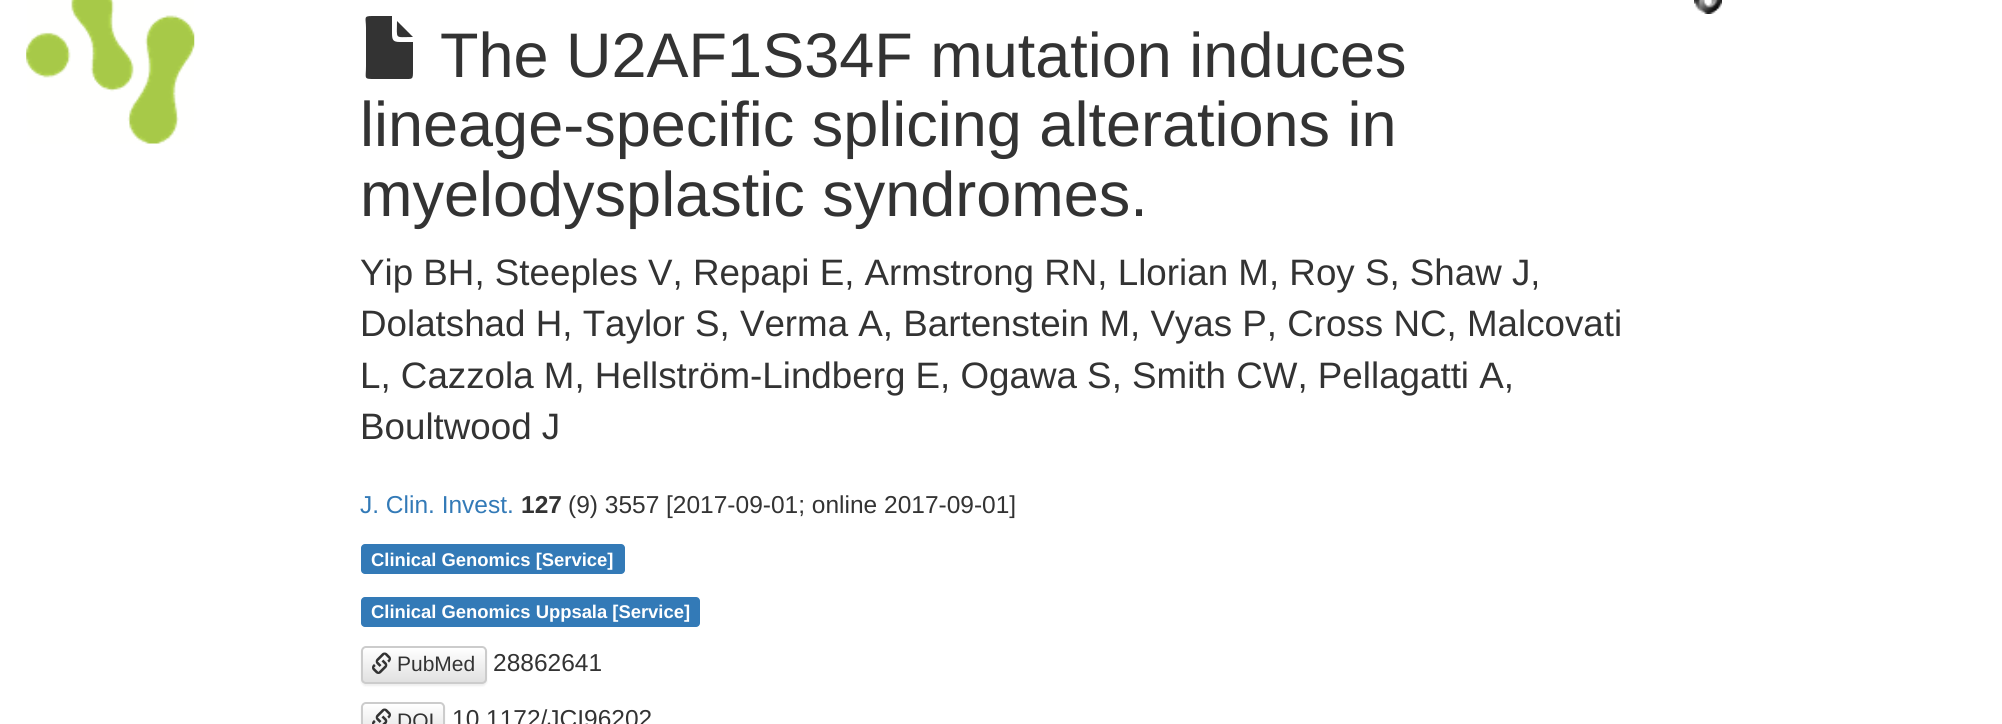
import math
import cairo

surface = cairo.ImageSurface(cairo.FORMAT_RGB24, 2002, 724)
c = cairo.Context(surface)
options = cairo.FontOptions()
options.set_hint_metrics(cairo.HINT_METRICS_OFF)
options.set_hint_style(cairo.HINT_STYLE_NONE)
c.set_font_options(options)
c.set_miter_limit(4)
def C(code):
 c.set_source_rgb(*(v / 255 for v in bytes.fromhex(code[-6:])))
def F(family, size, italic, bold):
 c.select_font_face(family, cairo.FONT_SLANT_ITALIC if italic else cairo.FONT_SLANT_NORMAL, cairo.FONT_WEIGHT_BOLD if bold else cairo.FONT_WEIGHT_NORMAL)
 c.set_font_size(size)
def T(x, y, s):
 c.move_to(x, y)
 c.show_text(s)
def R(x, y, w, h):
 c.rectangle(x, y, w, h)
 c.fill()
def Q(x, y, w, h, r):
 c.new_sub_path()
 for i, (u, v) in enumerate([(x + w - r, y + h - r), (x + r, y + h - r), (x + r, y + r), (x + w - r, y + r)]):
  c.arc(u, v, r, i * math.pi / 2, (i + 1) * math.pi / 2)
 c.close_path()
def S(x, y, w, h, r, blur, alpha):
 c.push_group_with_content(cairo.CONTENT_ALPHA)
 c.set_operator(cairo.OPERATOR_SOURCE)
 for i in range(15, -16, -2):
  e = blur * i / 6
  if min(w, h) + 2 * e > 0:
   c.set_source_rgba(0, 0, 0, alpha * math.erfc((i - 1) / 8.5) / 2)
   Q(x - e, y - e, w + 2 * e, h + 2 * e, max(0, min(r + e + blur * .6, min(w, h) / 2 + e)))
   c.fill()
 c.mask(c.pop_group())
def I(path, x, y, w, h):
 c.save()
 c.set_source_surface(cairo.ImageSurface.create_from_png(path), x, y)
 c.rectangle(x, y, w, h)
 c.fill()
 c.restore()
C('ffffff')
c.paint()
I('1.png',26,0,169,144)
I('2.png',1694,0,28,14)
C('333333')
c.new_path()
c.move_to(392,16)
c.line_to(392,33)
c.curve_to(392,40,393,42,400,42)
c.line_to(413,42)
c.line_to(413,70)
c.curve_to(413,80,413,79,403,79)
c.line_to(375,79)
c.curve_to(363,79,366,79,366,66)
c.line_to(366,28)
c.curve_to(366,18,363,16,372,16)
c.close_path()
c.move_to(413,37)
c.curve_to(394,37,397,40,397,21)
c.close_path()
c.fill()
F('Liberation Sans',63,0,0)
T(440,77,'The U2AF1S34F mutation induces')
T(360,146,'lineage-specific splicing alterations in')
T(360,216,'myelodysplastic syndromes.')
F('Liberation Sans',36.75,0,0)
T(360,285,'Yip BH, Steeples V, Repapi E, Armstrong RN, Llorian M, Roy S, Shaw J,')
T(360,336,'Dolatshad H, Taylor S, Verma A, Bartenstein M, Vyas P, Cross NC, Malcovati')
T(360,388,'L, Cazzola M, Hellström-Lindberg E, Ogawa S, Smith CW, Pellagatti A,')
T(360,439,'Boultwood J')
F('Liberation Sans',24.5,0,0)
C('337ab7')
T(360,513,'J. Clin. Invest.')
F('Liberation Sans',24.5,0,1)
C('333333')
T(521,513,'127')
F('Liberation Sans',24.5,0,0)
T(568,513,'(9) 3557 [2017-09-01; online 2017-09-01]')
C('337ab7')
Q(361,544,264,30,4)
c.fill()
F('Liberation Sans',18.4,0,1)
C('ffffff')
T(371,566,'Clinical Genomics [Service]')
C('337ab7')
Q(361,597,339,30,4)
c.fill()
C('ffffff')
T(371,618,'Clinical Genomics Uppsala [Service]')
C('000000')
S(361,648,126,38,5,1,.07)
c.save()
Q(361,646,126,38,5)
c.clip()
gradient = cairo.LinearGradient(424,648,424,683)
gradient.add_color_stop_rgba(0,1,1,1,1)
gradient.add_color_stop_rgba(1,0.878,0.878,0.878,1)
c.set_source(gradient)
R(361,648,126,35)
c.restore()
Q(362,647,124,36,4)
C('cccccc')
c.stroke()
I('3.png',372,652,19,22)
F('Liberation Sans',21,0,0)
C('333333')
T(397,671,'PubMed')
F('Liberation Sans',24.5,0,0)
T(493,671,'28862641')
C('000000')
S(361,704,84,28,5,1,.07)
c.save()
Q(361,702,84,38,5)
c.clip()
gradient = cairo.LinearGradient(403,704,403,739)
gradient.add_color_stop_rgba(0,1,1,1,1)
gradient.add_color_stop_rgba(1,0.878,0.878,0.878,1)
c.set_source(gradient)
R(361,704,84,20)
c.restore()
Q(362,703,82,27,4)
C('cccccc')
c.stroke()
I('4.png',372,708,19,16)
F('Liberation Sans',21,0,0)
C('333333')
T(397,728,'DOI')
F('Liberation Sans',24.5,0,0)
T(452,727,'10.1172/JCI96202')
surface.write_to_png('o.png')
